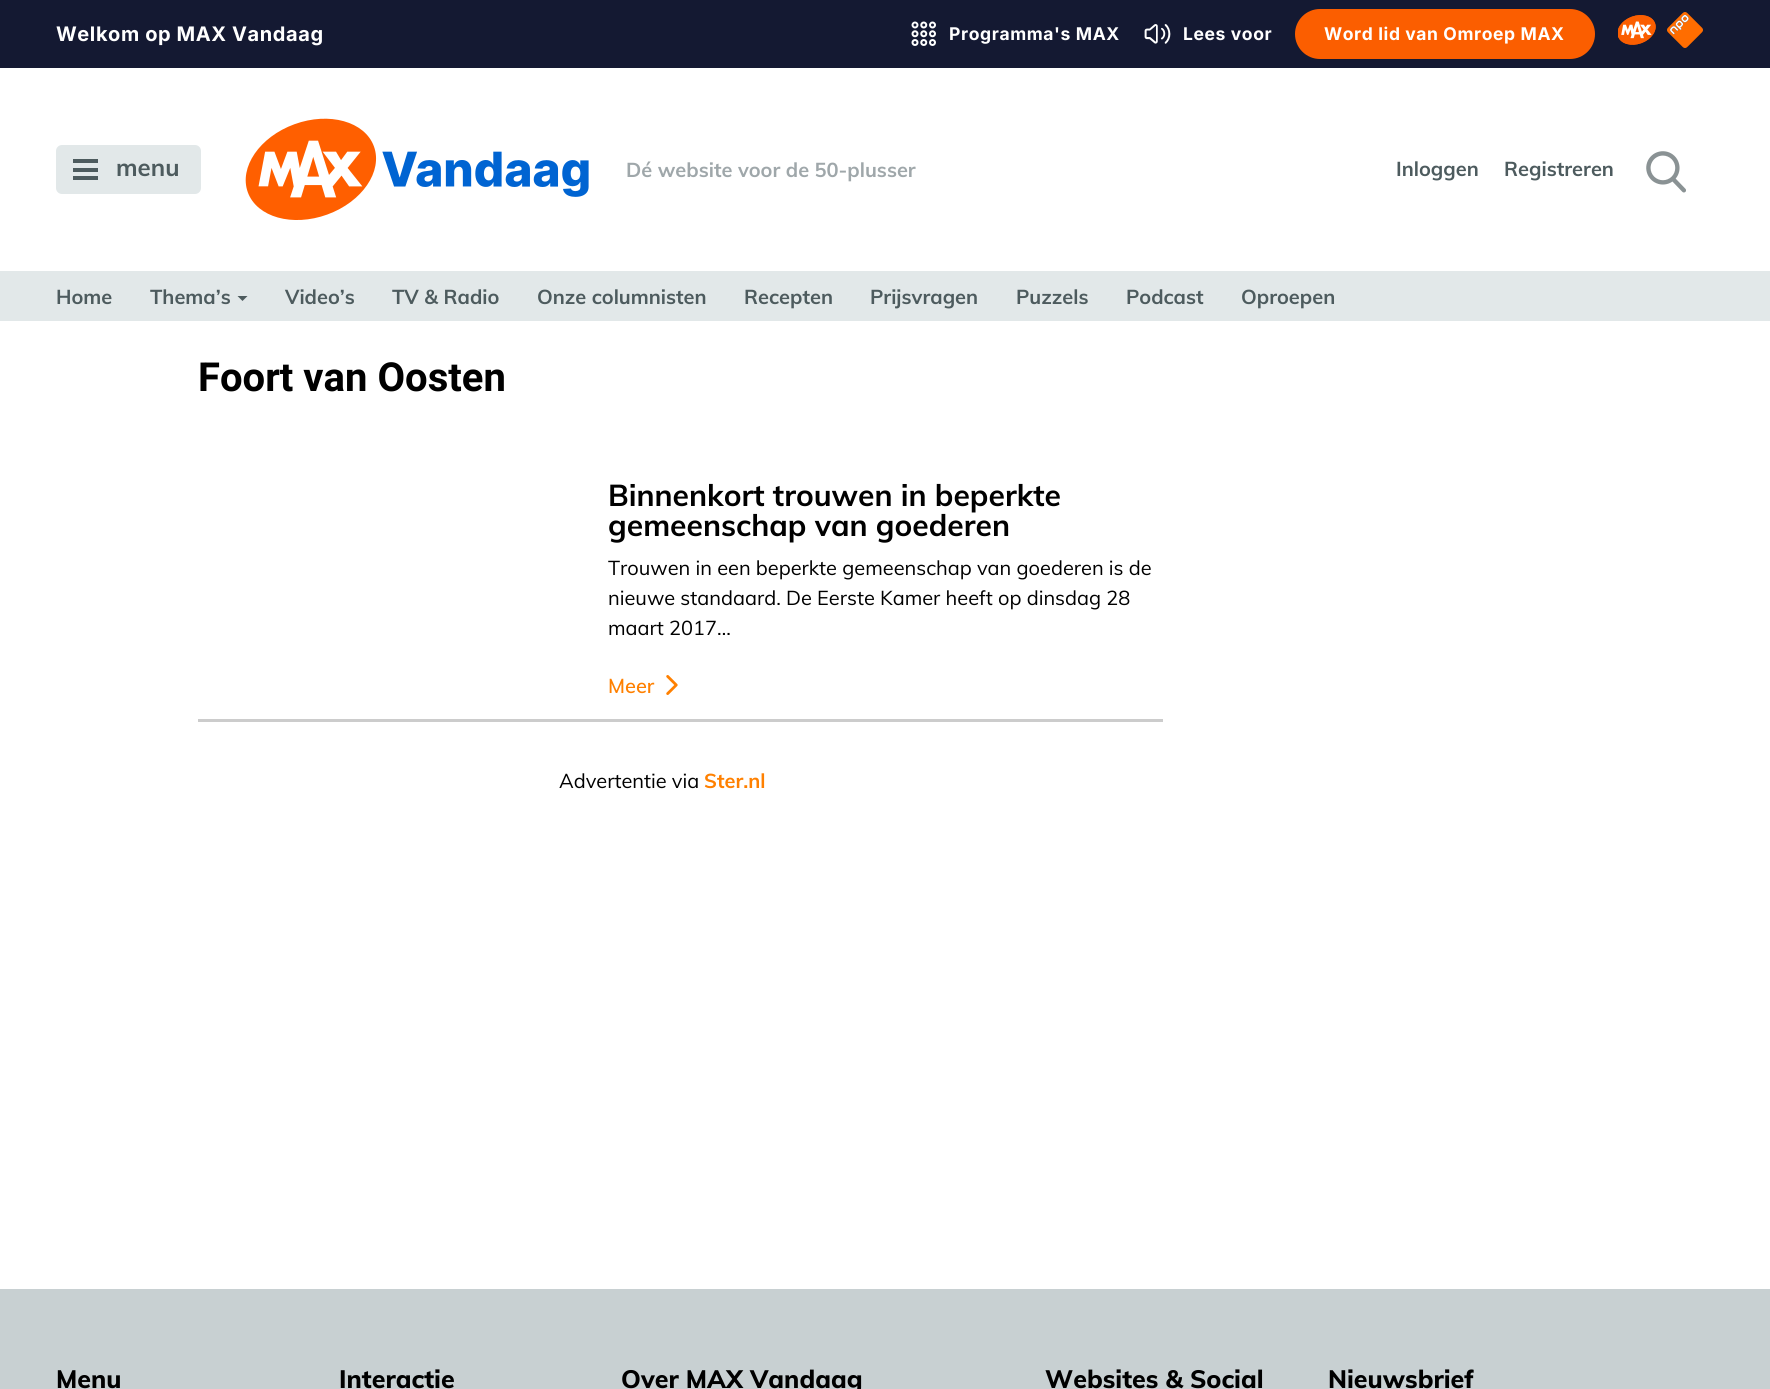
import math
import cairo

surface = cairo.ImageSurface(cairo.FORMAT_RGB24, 1770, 1389)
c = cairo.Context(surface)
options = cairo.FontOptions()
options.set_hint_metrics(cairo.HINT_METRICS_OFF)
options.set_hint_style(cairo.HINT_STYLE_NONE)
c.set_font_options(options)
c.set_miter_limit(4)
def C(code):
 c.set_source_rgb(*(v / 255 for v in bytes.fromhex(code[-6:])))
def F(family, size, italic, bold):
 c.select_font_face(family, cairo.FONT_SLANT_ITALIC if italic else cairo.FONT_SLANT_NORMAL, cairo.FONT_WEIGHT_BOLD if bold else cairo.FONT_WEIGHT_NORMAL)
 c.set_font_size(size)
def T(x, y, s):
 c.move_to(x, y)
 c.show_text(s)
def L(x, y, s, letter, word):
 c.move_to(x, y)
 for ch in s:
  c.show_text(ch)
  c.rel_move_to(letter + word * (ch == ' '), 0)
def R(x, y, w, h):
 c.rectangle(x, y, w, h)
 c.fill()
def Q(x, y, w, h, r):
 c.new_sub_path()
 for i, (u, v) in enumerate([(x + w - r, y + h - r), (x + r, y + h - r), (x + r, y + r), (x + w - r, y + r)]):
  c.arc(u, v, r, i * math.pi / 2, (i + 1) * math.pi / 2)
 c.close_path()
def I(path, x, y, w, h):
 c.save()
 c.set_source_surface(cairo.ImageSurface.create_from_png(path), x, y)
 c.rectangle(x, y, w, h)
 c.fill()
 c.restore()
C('ffffff')
c.paint()
C('141932')
R(0,0,1770,68)
F('Inter',20,0,1)
C('ffffff')
L(56,41,'Welkom op MAX Vandaag',.6,0)
I('1.png',911,21,25,25)
F('Inter',17.5,0,1)
L(949,40,'Programma\'s MAX',.6,0)
I('2.png',1144,24,27,20)
L(1183,40,'Lees voor',.6,0)
C('fb5e00')
Q(1295,9,300,50,25)
c.fill()
C('ffffff')
L(1324,40,'Word lid van Omroep MAX',.6,0)
I('3.png',1618,15,38,30)
I('4.png',1667,12,36,36)
C('e2e8e9')
Q(56,145,145,49,6)
c.fill()
C('4d5b5e')
R(73,159,25,4)
R(73,168,25,4)
R(73,176,25,4)
F('Muli',24,0,1)
T(116,176,'menu')
I('5.png',245,118,344,102)
F('Muli',20,0,1)
C('9fa7aa')
T(626,177,'Dé website voor de 50-plusser')
C('4d5b5e')
T(1396,176,'Inloggen')
T(1504,176,'Registreren')
I('6.png',1646,151,40,42)
C('e2e8e9')
R(0,271,1770,50)
C('4d5b5e')
T(56,304,'Home')
T(150,304,'Thema’s')
c.new_path()
c.move_to(237.5,296)
c.line_to(242.5,301)
c.line_to(247.5,296)
c.close_path()
c.fill()
T(285,304,'Video’s')
T(392,304,'TV & Radio')
T(537,304,'Onze columnisten')
T(744,304,'Recepten')
T(870,304,'Prijsvragen')
T(1016,304,'Puzzels')
T(1126,304,'Podcast')
T(1241,304,'Oproepen')
F('Heebo',40,0,1)
C('000000')
T(198,391,'Foort van Oosten')
C('cccccc')
R(198,719,965,3)
F('Muli',30,0,1)
C('000000')
T(608,506,'Binnenkort trouwen in beperkte')
T(608,536,'gemeenschap van goederen')
F('Muli',20,0,0)
T(608,575,'Trouwen in een beperkte gemeenschap van goederen is de')
T(608,605,'nieuwe standaard. De Eerste Kamer heeft op dinsdag 28')
T(608,635,'maart 2017…')
F('Muli SemiBold',20,0,0)
C('ff8000')
T(608,693,'Meer')
I('7.png',666,675,12,20)
F('Muli',20,0,0)
C('000000')
T(559,788,'Advertentie via')
F('Muli',20,0,1)
C('ff8000')
T(704,788,'Ster.nl')
C('c8d0d2')
R(0,1289,1770,100)
F('Muli ExtraBold',25,0,0)
C('000000')
T(56,1388,'Menu')
T(339,1388,'Interactie')
T(621,1388,'Over MAX Vandaag')
T(1045,1388,'Websites & Social')
T(1328,1388,'Nieuwsbrief')
surface.write_to_png('o.png')
